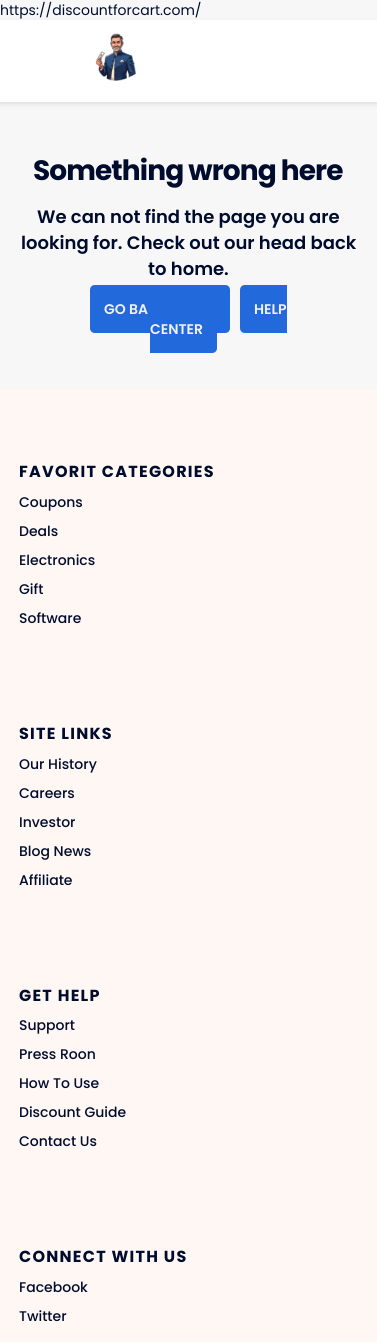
import math
import cairo

surface = cairo.ImageSurface(cairo.FORMAT_RGB24, 377, 1342)
c = cairo.Context(surface)
options = cairo.FontOptions()
options.set_hint_metrics(cairo.HINT_METRICS_OFF)
options.set_hint_style(cairo.HINT_STYLE_NONE)
c.set_font_options(options)
c.set_miter_limit(4)
def C(code):
 c.set_source_rgb(*(v / 255 for v in bytes.fromhex(code[-6:])))
def F(family, size, italic, bold):
 c.select_font_face(family, cairo.FONT_SLANT_ITALIC if italic else cairo.FONT_SLANT_NORMAL, cairo.FONT_WEIGHT_BOLD if bold else cairo.FONT_WEIGHT_NORMAL)
 c.set_font_size(size)
def T(x, y, s):
 c.move_to(x, y)
 c.show_text(s)
def L(x, y, s, letter, word):
 c.move_to(x, y)
 for ch in s:
  c.show_text(ch)
  c.rel_move_to(letter + word * (ch == ' '), 0)
def R(x, y, w, h):
 c.rectangle(x, y, w, h)
 c.fill()
def Q(x, y, w, h, r):
 c.new_sub_path()
 for i, (u, v) in enumerate([(x + w - r, y + h - r), (x + r, y + h - r), (x + r, y + r), (x + w - r, y + r)]):
  c.arc(u, v, r, i * math.pi / 2, (i + 1) * math.pi / 2)
 c.close_path()
def S(x, y, w, h, r, blur, alpha):
 c.push_group_with_content(cairo.CONTENT_ALPHA)
 c.set_operator(cairo.OPERATOR_SOURCE)
 for i in range(15, -16, -2):
  e = blur * i / 6
  if min(w, h) + 2 * e > 0:
   c.set_source_rgba(0, 0, 0, alpha * math.erfc((i - 1) / 8.5) / 2)
   Q(x - e, y - e, w + 2 * e, h + 2 * e, max(0, min(r + e + blur * .6, min(w, h) / 2 + e)))
   c.fill()
 c.mask(c.pop_group())
def I(path, x, y, w, h):
 c.save()
 c.set_source_surface(cairo.ImageSurface.create_from_png(path), x, y)
 c.rectangle(x, y, w, h)
 c.fill()
 c.restore()
C('f7f7f8')
c.paint()
F('Poppins',14,0,0)
C('000c2d')
T(0,15,'https://discountforcart.com/')
C('9e9e9e')
S(0,22,377,82,0,2.5,.3)
C('ffffff')
R(0,20,377,82)
I('1.png',95,33,41,48)
F('Poppins',28,0,1)
C('000c2d')
L(33,180,'Something wrong here',-.9,0)
F('Poppins SemiBold',18,0,0)
T(37,223,'We can not find the page you are')
T(21,249,'looking for. Check out our head back')
T(148,275,'to home.')
C('2269dc')
c.new_path()
c.move_to(95,285)
c.line_to(213,285)
c.line_to(213,333)
c.line_to(95,333)
c.curve_to(92,333,90,331,90,328)
c.line_to(90,290)
c.curve_to(90,287,92,285,95,285)
c.close_path()
c.fill()
F('Poppins SemiBold',14,0,0)
C('f2f2f2')
T(104,314,'GO BA')
C('2269dc')
c.new_path()
c.move_to(213,285)
c.line_to(225,285)
c.curve_to(228,285,230,287,230,290)
c.line_to(230,328)
c.curve_to(230,331,228,333,225,333)
c.line_to(213,333)
c.close_path()
c.fill()
c.new_path()
c.move_to(245,285)
c.line_to(287,285)
c.line_to(287,333)
c.line_to(245,333)
c.curve_to(242,333,240,331,240,328)
c.line_to(240,290)
c.curve_to(240,287,242,285,245,285)
c.close_path()
c.fill()
C('f2f2f2')
T(254,314,'HELP')
C('2269dc')
c.new_path()
c.move_to(150,305)
c.line_to(212,305)
c.curve_to(215,305,217,307,217,310)
c.line_to(217,348)
c.curve_to(217,351,215,353,212,353)
c.line_to(150,353)
c.close_path()
c.fill()
C('f2f2f2')
T(150,334,'CENTER')
C('fff7f4')
R(0,389,377,953)
F('Poppins',16,0,1)
C('000c2d')
L(19,477,'FAVORIT CATEGORIES',1.25,0)
F('Poppins Medium',14,0,0)
T(19,507,'Coupons')
T(19,536,'Deals')
T(19,565,'Electronics')
T(19,594,'Gift')
T(19,623,'Software')
F('Poppins',16,0,1)
L(19,739,'SITE LINKS',1.25,0)
F('Poppins Medium',14,0,0)
T(19,769,'Our History')
T(19,798,'Careers')
T(19,827,'Investor')
T(19,856,'Blog News')
T(19,885,'Affiliate')
F('Poppins',16,0,1)
L(19,1001,'GET HELP',1.25,0)
F('Poppins Medium',14,0,0)
T(19,1030,'Support')
T(19,1059,'Press Roon')
T(19,1088,'How To Use')
T(19,1117,'Discount Guide')
T(19,1146,'Contact Us')
F('Poppins',16,0,1)
L(19,1262,'CONNECT WITH US',1.25,0)
F('Poppins Medium',14,0,0)
T(19,1292,'Facebook')
T(19,1321,'Twitter')
surface.write_to_png('o.png')
